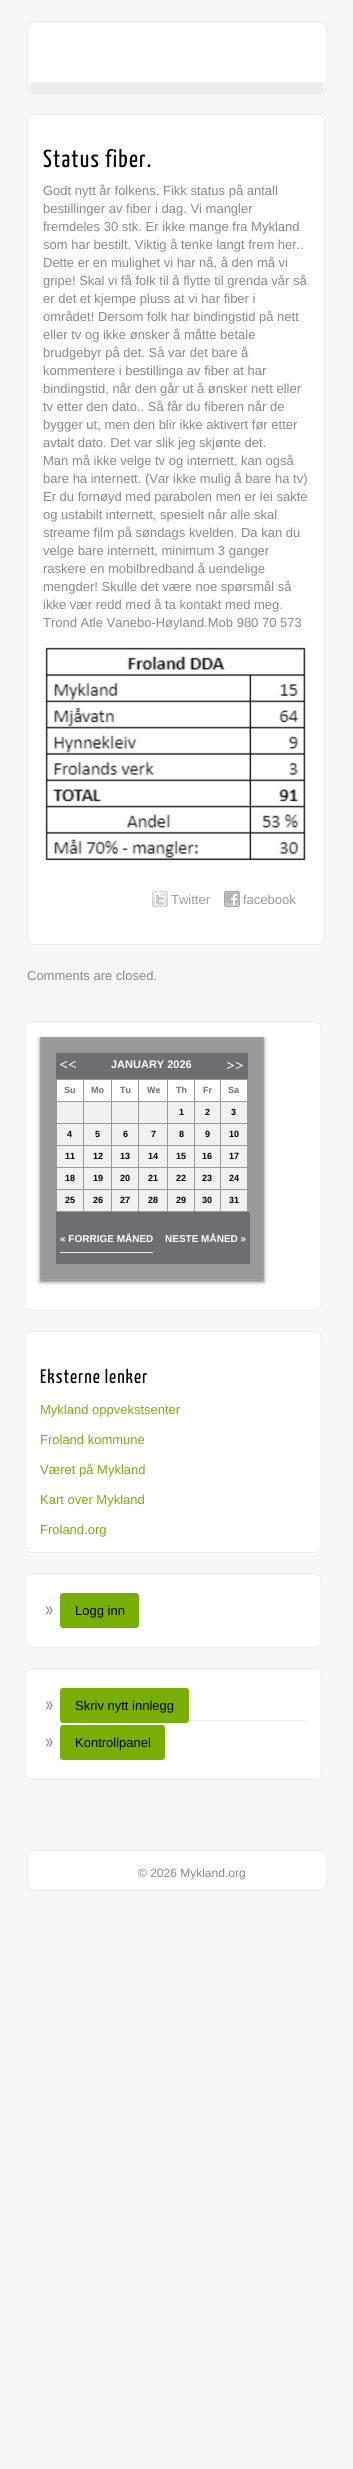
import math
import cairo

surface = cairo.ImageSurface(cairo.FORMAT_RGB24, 353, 2469)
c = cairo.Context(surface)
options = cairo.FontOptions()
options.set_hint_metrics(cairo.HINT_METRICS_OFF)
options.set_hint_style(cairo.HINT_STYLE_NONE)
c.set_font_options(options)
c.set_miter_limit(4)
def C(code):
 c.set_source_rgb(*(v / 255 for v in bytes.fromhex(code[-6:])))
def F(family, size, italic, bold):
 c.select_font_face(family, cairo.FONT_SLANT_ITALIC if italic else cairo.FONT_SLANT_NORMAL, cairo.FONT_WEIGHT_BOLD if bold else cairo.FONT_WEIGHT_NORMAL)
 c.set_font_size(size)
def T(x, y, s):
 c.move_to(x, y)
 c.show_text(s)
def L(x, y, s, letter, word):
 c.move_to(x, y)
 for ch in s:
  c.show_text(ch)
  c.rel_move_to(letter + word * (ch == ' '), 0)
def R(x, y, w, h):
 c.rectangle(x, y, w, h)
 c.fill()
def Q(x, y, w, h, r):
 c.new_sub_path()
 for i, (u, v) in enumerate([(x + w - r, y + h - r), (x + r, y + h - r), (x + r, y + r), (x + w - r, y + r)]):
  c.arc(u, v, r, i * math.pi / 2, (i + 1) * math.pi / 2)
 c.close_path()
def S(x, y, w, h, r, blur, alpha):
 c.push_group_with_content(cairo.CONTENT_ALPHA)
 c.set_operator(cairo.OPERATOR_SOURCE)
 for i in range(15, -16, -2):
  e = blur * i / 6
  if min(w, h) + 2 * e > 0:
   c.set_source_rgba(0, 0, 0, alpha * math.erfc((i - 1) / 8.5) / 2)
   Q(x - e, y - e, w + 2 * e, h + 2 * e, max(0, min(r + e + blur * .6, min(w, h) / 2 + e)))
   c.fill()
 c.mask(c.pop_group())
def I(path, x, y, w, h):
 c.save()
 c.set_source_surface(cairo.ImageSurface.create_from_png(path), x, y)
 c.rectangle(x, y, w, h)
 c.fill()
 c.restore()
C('f7f7f7')
c.paint()
C('ffffff')
c.new_path()
c.move_to(35,22)
c.line_to(319,22)
c.curve_to(323,22,326,25,326,29)
c.line_to(326,82)
c.line_to(28,82)
c.line_to(28,29)
c.curve_to(28,25,31,22,35,22)
c.close_path()
c.fill()
Q(27.5,21.5,299,72,7.5)
C('ececec')
c.set_line_width(1)
c.stroke()
R(31,82,292,11)
C('ffffff')
Q(27.5,114.5,297,830,7.5)
c.fill_preserve()
C('ececec')
c.stroke()
F('Yanone Kaffeesatz',24.5,0,0)
C('000000')
L(43,167,'Status fiber.',1.25,0)
F('Liberation Sans',13,0,0)
C('888888')
T(43,195,'Godt nytt år folkens. Fikk status på antall')
T(43,213,'bestillinger av fiber i dag. Vi mangler')
T(43,231,'fremdeles 30 stk. Er ikke mange fra Mykland')
T(43,249,'som har bestilt. Viktig å tenke langt frem her..')
T(43,267,'Dette er en mulighet vi har nå, å den må vi')
T(43,285,'gripe! Skal vi få folk til å flytte til grenda vår så')
T(43,303,'er det et kjempe pluss at vi har fiber i')
T(43,321,'området! Dersom folk har bindingstid på nett')
T(43,339,'eller tv og ikke ønsker å måtte betale')
T(43,357,'brudgebyr på det. Så var det bare å')
T(43,375,'kommentere i bestillinga av fiber at har')
T(43,393,'bindingstid, når den går ut å ønsker nett eller')
T(43,411,'tv etter den dato.. Så får du fiberen når de')
T(43,429,'bygger ut, men den blir ikke aktivert før etter')
T(43,447,'avtalt dato. Det var slik jeg skjønte det.')
T(43,465,'Man må ikke velge tv og internett, kan også')
T(43,483,'bare ha internett. (Var ikke mulig å bare ha tv)')
T(43,501,'Er du fornøyd med parabolen men er lei sakte')
T(43,519,'og ustabilt internett, spesielt når alle skal')
T(43,537,'streame film på søndags kvelden. Da kan du')
T(43,555,'velge bare internett, minimum 3 ganger')
T(43,573,'raskere en mobilbredband å uendelige')
T(43,591,'mengder! Skulle det være noe spørsmål så')
T(43,609,'ikke vær redd med å ta kontakt med meg.')
T(43,627,'Trond Atle Vanebo-Høyland.Mob 980 70 573')
I('1.png',45,647,261,214)
I('2.png',152,891,16,16)
C('999999')
T(171,904,'Twitter')
I('3.png',224,891,16,16)
T(243,904,'facebook')
C('888888')
T(27,980,'Comments are closed.')
c.save()
c.rectangle(27,21,300,1870)
c.clip()
C('ffffff')
Q(24.5,1021.5,297,289,7.5)
c.fill_preserve()
C('ececec')
c.stroke()
c.restore()
C('323232')
S(40,1039,224,243,0,2,.63)
C('999999')
c.rectangle(40.5,1037.5,223,242)
c.fill_preserve()
C('a2a3a4')
c.stroke()
C('6d6e72')
R(56,1053,192,26)
I('4.png',60,1061,16,7)
F('Liberation Sans',11,0,1)
C('ffffff')
T(111,1068,'JANUARY 2026')
I('5.png',227,1062,16,7)
R(57,1080,26,21)
F('Liberation Sans',9,0,1)
C('6d6e72')
T(64,1093,'Su')
C('ffffff')
R(84,1080,27,21)
C('6d6e72')
T(91,1093,'Mo')
C('ffffff')
R(112,1080,26,21)
C('6d6e72')
T(120,1093,'Tu')
C('ffffff')
R(139,1080,28,21)
C('6d6e72')
T(147,1093,'We')
C('ffffff')
R(168,1080,26,21)
C('6d6e72')
T(176,1093,'Th')
C('ffffff')
R(195,1080,25,21)
C('6d6e72')
T(203,1093,'Fr')
C('ffffff')
R(221,1080,26,21)
C('6d6e72')
T(228,1093,'Sa')
C('f1f1f1')
R(57,1102,26,21)
R(84,1102,27,21)
R(112,1102,26,21)
R(139,1102,28,21)
R(168,1102,26,21)
C('000000')
T(179,1115,'1')
C('f1f1f1')
R(195,1102,25,21)
C('000000')
T(205,1115,'2')
C('f1f1f1')
R(221,1102,26,21)
C('000000')
T(231,1115,'3')
C('f1f1f1')
R(57,1124,26,21)
C('000000')
T(67,1137,'4')
C('f1f1f1')
R(84,1124,27,21)
C('000000')
T(95,1137,'5')
C('f1f1f1')
R(112,1124,26,21)
C('000000')
T(123,1137,'6')
C('f1f1f1')
R(139,1124,28,21)
C('000000')
T(151,1137,'7')
C('f1f1f1')
R(168,1124,26,21)
C('000000')
T(179,1137,'8')
C('f1f1f1')
R(195,1124,25,21)
C('000000')
T(205,1137,'9')
C('f1f1f1')
R(221,1124,26,21)
C('000000')
T(229,1137,'10')
C('f1f1f1')
R(57,1146,26,21)
C('000000')
T(65,1159,'11')
C('f1f1f1')
R(84,1146,27,21)
C('000000')
T(93,1159,'12')
C('f1f1f1')
R(112,1146,26,21)
C('000000')
T(120,1159,'13')
C('f1f1f1')
R(139,1146,28,21)
C('000000')
T(148,1159,'14')
C('f1f1f1')
R(168,1146,26,21)
C('000000')
T(176,1159,'15')
C('f1f1f1')
R(195,1146,25,21)
C('000000')
T(202,1159,'16')
C('f1f1f1')
R(221,1146,26,21)
C('000000')
T(229,1159,'17')
C('f1f1f1')
R(57,1168,26,21)
C('000000')
T(65,1181,'18')
C('f1f1f1')
R(84,1168,27,21)
C('000000')
T(93,1181,'19')
C('f1f1f1')
R(112,1168,26,21)
C('000000')
T(120,1181,'20')
C('f1f1f1')
R(139,1168,28,21)
C('000000')
T(148,1181,'21')
C('f1f1f1')
R(168,1168,26,21)
C('000000')
T(176,1181,'22')
C('f1f1f1')
R(195,1168,25,21)
C('000000')
T(202,1181,'23')
C('f1f1f1')
R(221,1168,26,21)
C('000000')
T(229,1181,'24')
C('f1f1f1')
R(57,1190,26,21)
C('000000')
T(65,1203,'25')
C('f1f1f1')
R(84,1190,27,21)
C('000000')
T(93,1203,'26')
C('f1f1f1')
R(112,1190,26,21)
C('000000')
T(120,1203,'27')
C('f1f1f1')
R(139,1190,28,21)
C('000000')
T(148,1203,'28')
C('f1f1f1')
R(168,1190,26,21)
C('000000')
T(176,1203,'29')
C('f1f1f1')
R(195,1190,25,21)
C('000000')
T(202,1203,'30')
C('f1f1f1')
R(221,1190,26,21)
C('000000')
T(229,1203,'31')
C('6d6e72')
R(56,1212,194,52)
C('ececec')
R(60,1252,93,1)
F('Liberation Sans',10,0,1)
C('ffffff')
T(60,1242,'« FORRIGE MÅNED')
T(165,1242,'NESTE MÅNED »')
c.save()
c.rectangle(27,21,300,1870)
c.clip()
Q(24.5,1331.5,297,221,7.5)
c.fill_preserve()
C('ececec')
c.stroke()
c.restore()
F('Yanone Kaffeesatz',19.5,0,0)
C('000000')
L(40,1383,'Eksterne lenker',1,0)
F('Liberation Sans',13,0,0)
C('79af04')
T(40,1414,'Mykland oppvekstsenter')
T(40,1444,'Froland kommune')
T(40,1474,'Været på Mykland')
T(40,1504,'Kart over Mykland')
T(40,1534,'Froland.org')
c.save()
c.rectangle(27,21,300,1870)
c.clip()
C('ffffff')
Q(24.5,1573.5,297,74,7.5)
c.fill_preserve()
C('ececec')
c.stroke()
c.restore()
I('6.png',46,1606,7,9)
Q(60,1593,79,35,3)
c.fill()
C('000000')
T(75,1615,'Logg inn')
c.save()
c.rectangle(27,21,300,1870)
c.clip()
C('ffffff')
Q(24.5,1668.5,297,111,7.5)
c.fill_preserve()
C('ececec')
c.stroke()
c.restore()
C('ececec')
R(60,1720,246,1)
I('6.png',46,1701,7,9)
C('79af04')
Q(60,1688,129,35,3)
c.fill()
C('000000')
T(75,1710,'Skriv nytt innlegg')
I('6.png',46,1738,7,9)
C('79af04')
Q(60,1725,105,35,3)
c.fill()
C('000000')
T(75,1747,'Kontrollpanel')
C('ffffff')
Q(27.5,1850.5,299,40,7.5)
c.fill_preserve()
C('ececec')
c.stroke()
F('Liberation Sans',12,0,0)
C('888888')
T(138,1877,'© 2026 Mykland.org')
surface.write_to_png('o.png')
